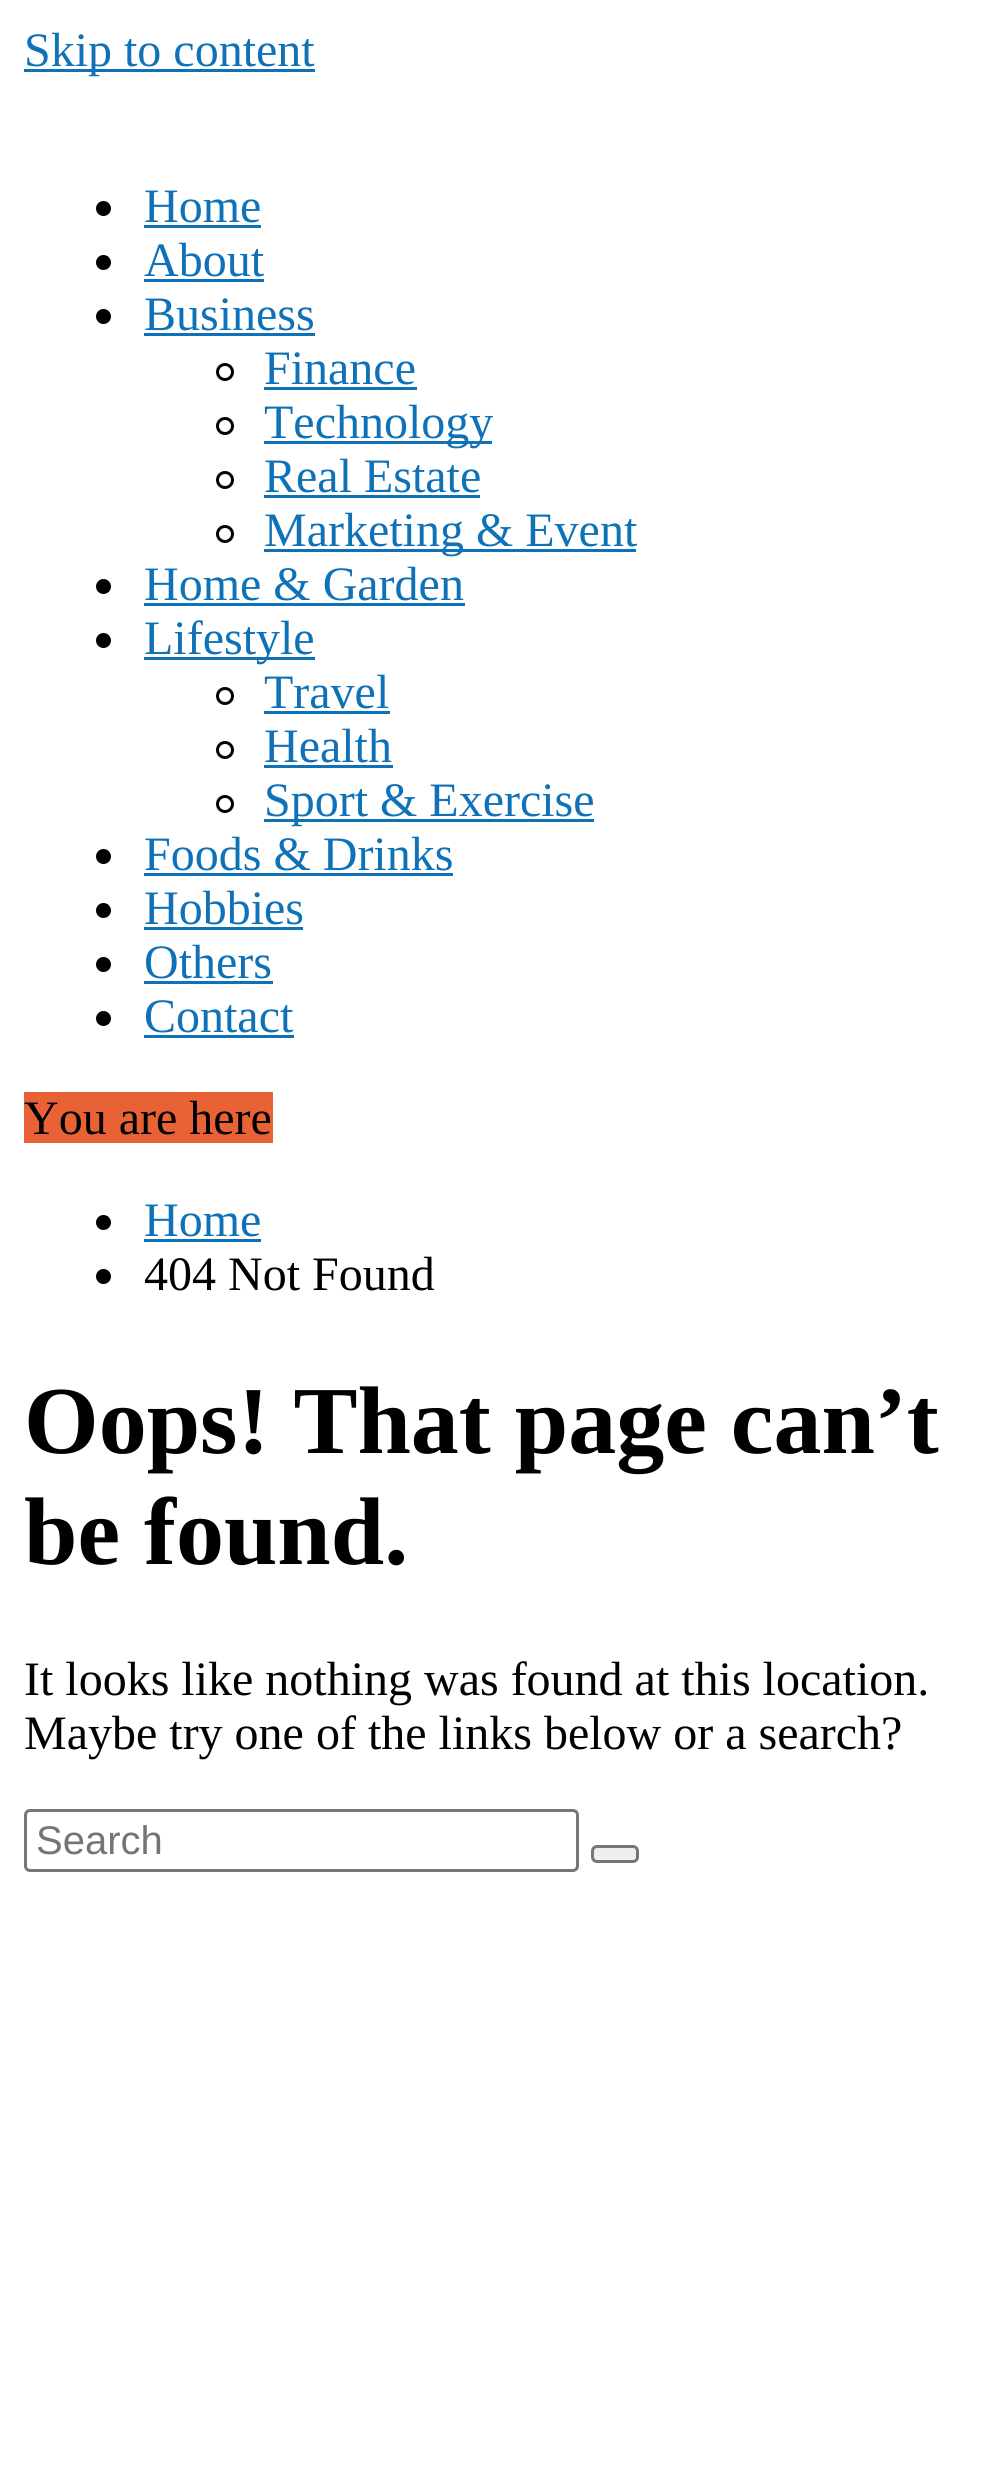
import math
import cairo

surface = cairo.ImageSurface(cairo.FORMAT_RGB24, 1000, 2471)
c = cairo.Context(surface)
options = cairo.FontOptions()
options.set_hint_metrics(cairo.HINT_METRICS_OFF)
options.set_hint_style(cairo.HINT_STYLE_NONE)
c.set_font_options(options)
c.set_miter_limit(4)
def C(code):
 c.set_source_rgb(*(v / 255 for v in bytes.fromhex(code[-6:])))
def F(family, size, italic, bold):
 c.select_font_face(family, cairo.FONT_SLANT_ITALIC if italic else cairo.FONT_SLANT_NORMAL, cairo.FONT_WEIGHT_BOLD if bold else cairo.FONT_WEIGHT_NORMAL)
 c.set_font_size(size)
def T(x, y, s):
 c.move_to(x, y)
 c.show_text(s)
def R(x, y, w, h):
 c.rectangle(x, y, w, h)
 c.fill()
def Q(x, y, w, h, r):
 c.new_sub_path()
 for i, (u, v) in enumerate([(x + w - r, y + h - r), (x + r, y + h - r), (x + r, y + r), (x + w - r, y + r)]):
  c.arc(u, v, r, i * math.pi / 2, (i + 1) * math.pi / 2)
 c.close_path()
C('ffffff')
c.paint()
C('0f71b7')
R(24,69,291,3)
F('Liberation Serif',48,0,0)
T(24,66,'Skip to content')
C('000000')
c.new_path()
c.arc(103.5,208.5,7.5,0,2 * math.pi)
c.fill()
C('0f71b7')
T(144,222,'Home')
R(144,225,117,3)
C('000000')
c.new_path()
c.arc(103.5,262.5,7.5,0,2 * math.pi)
c.fill()
C('0f71b7')
T(144,276,'About')
R(144,279,120,3)
C('000000')
c.new_path()
c.arc(103.5,316.5,7.5,0,2 * math.pi)
c.fill()
C('0f71b7')
T(144,330,'Business')
R(144,333,171,3)
c.new_path()
c.arc(225,372,7.5,0,2 * math.pi)
C('000000')
c.set_line_width(3)
c.stroke()
C('0f71b7')
T(264,384,'Finance')
R(264,387,153,3)
c.new_path()
c.arc(225,426,7.5,0,2 * math.pi)
C('000000')
c.stroke()
C('0f71b7')
R(264,441,228,3)
T(264,438,'Technology')
c.new_path()
c.arc(225,480,7.5,0,2 * math.pi)
C('000000')
c.stroke()
C('0f71b7')
T(264,492,'Real Estate')
R(264,495,216,3)
c.new_path()
c.arc(225,534,7.5,0,2 * math.pi)
C('000000')
c.stroke()
C('0f71b7')
R(264,549,372,3)
T(264,546,'Marketing & Event')
C('000000')
c.new_path()
c.arc(103.5,586.5,7.5,0,2 * math.pi)
c.fill()
C('0f71b7')
T(144,600,'Home & Garden')
R(144,603,321,3)
C('000000')
c.new_path()
c.arc(103.5,640.5,7.5,0,2 * math.pi)
c.fill()
C('0f71b7')
R(144,657,171,3)
T(144,654,'Lifestyle')
c.new_path()
c.arc(225,696,7.5,0,2 * math.pi)
C('000000')
c.stroke()
C('0f71b7')
T(264,708,'Travel')
R(264,711,126,3)
c.new_path()
c.arc(225,750,7.5,0,2 * math.pi)
C('000000')
c.stroke()
C('0f71b7')
T(264,762,'Health')
R(264,765,129,3)
c.new_path()
c.arc(225,804,7.5,0,2 * math.pi)
C('000000')
c.stroke()
C('0f71b7')
R(264,819,330,3)
T(264,816,'Sport & Exercise')
C('000000')
c.new_path()
c.arc(103.5,856.5,7.5,0,2 * math.pi)
c.fill()
C('0f71b7')
T(144,870,'Foods & Drinks')
R(144,873,309,3)
C('000000')
c.new_path()
c.arc(103.5,910.5,7.5,0,2 * math.pi)
c.fill()
C('0f71b7')
T(144,924,'Hobbies')
R(144,927,159,3)
C('000000')
c.new_path()
c.arc(103.5,964.5,7.5,0,2 * math.pi)
c.fill()
C('0f71b7')
T(144,978,'Others')
R(144,981,129,3)
C('000000')
c.new_path()
c.arc(103.5,1018.5,7.5,0,2 * math.pi)
c.fill()
C('0f71b7')
T(144,1032,'Contact')
R(144,1035,150,3)
C('e96236')
R(24,1092,249,51)
C('000000')
T(24,1134,'You are here')
c.new_path()
c.arc(103.5,1222.5,7.5,0,2 * math.pi)
c.fill()
C('0f71b7')
T(144,1236,'Home')
R(144,1239,117,3)
C('000000')
c.new_path()
c.arc(103.5,1276.5,7.5,0,2 * math.pi)
c.fill()
T(144,1290,'404 Not Found')
F('Liberation Serif',96,0,1)
T(24,1453,'Oops! That page can’t')
T(24,1564,'be found.')
F('Liberation Serif',48,0,0)
T(24,1695,'It looks like nothing was found at this location.')
T(24,1749,'Maybe try one of the links below or a search?')
Q(25.5,1810.5,552,60,4.5)
C('767676')
c.stroke()
F('Liberation Sans',40,0,0)
C('757575')
T(36,1854,'Search')
C('efefef')
Q(592.5,1846.5,45,15,4.5)
c.fill_preserve()
C('767676')
c.stroke()
surface.write_to_png('o.png')
